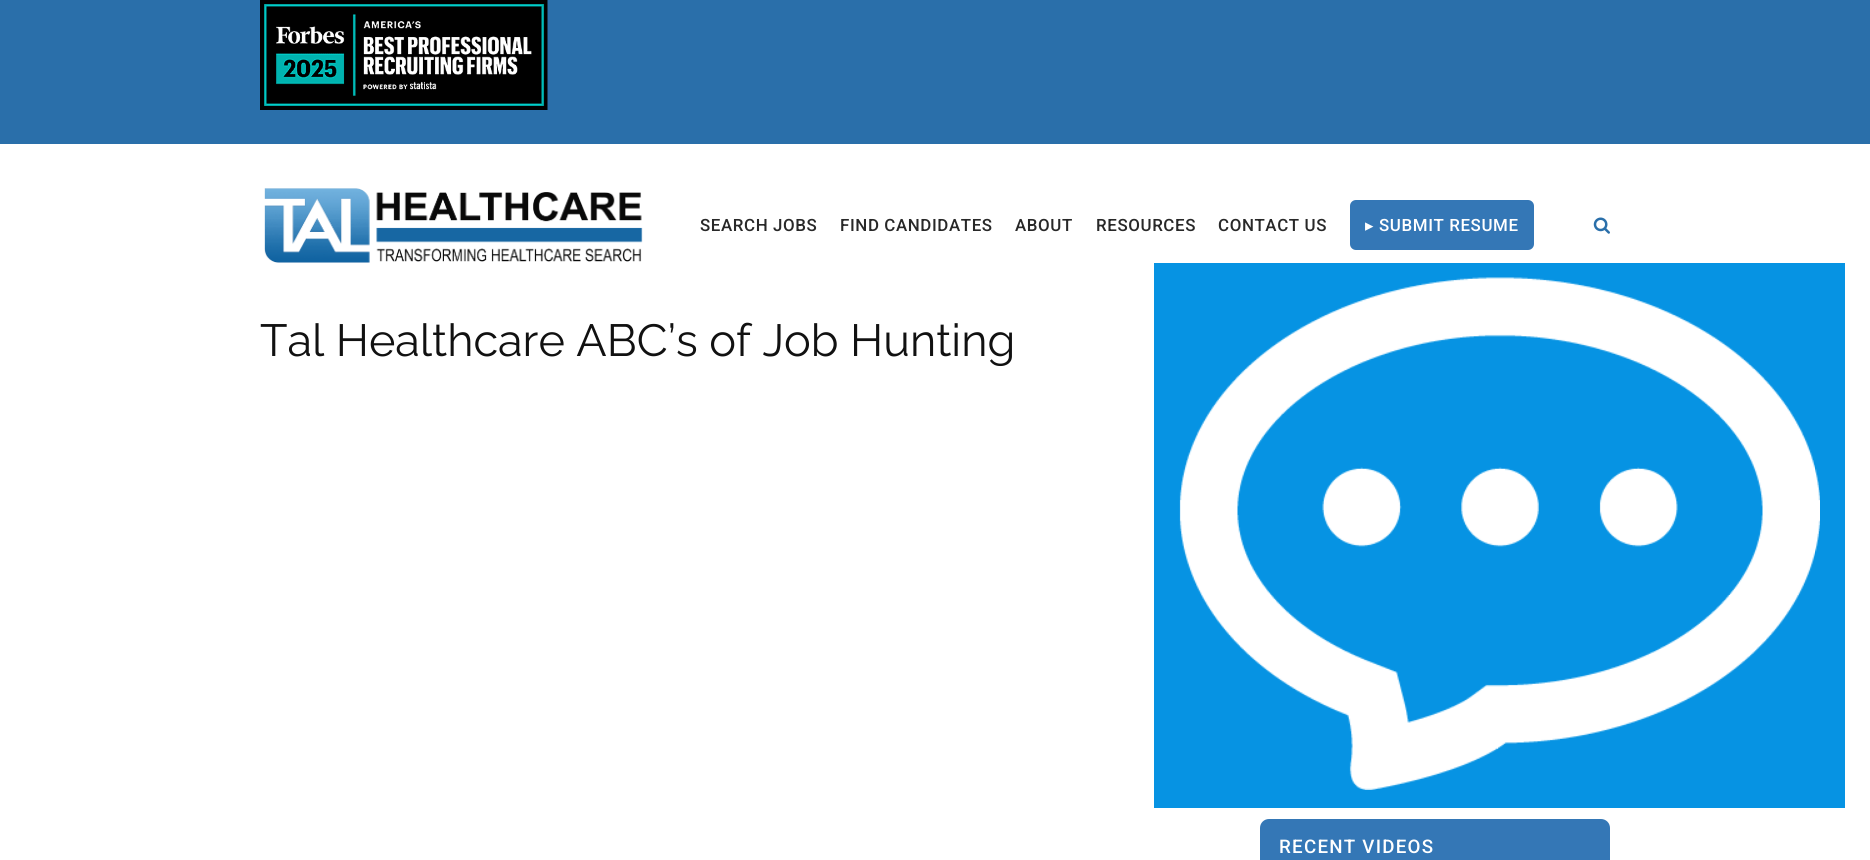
import math
import cairo

surface = cairo.ImageSurface(cairo.FORMAT_RGB24, 1870, 860)
c = cairo.Context(surface)
options = cairo.FontOptions()
options.set_hint_metrics(cairo.HINT_METRICS_OFF)
options.set_hint_style(cairo.HINT_STYLE_NONE)
c.set_font_options(options)
c.set_miter_limit(4)
def C(code):
 c.set_source_rgb(*(v / 255 for v in bytes.fromhex(code[-6:])))
def F(family, size, italic, bold):
 c.select_font_face(family, cairo.FONT_SLANT_ITALIC if italic else cairo.FONT_SLANT_NORMAL, cairo.FONT_WEIGHT_BOLD if bold else cairo.FONT_WEIGHT_NORMAL)
 c.set_font_size(size)
def T(x, y, s):
 c.move_to(x, y)
 c.show_text(s)
def L(x, y, s, letter, word):
 c.move_to(x, y)
 for ch in s:
  c.show_text(ch)
  c.rel_move_to(letter + word * (ch == ' '), 0)
def R(x, y, w, h):
 c.rectangle(x, y, w, h)
 c.fill()
def Q(x, y, w, h, r):
 c.new_sub_path()
 for i, (u, v) in enumerate([(x + w - r, y + h - r), (x + r, y + h - r), (x + r, y + r), (x + w - r, y + r)]):
  c.arc(u, v, r, i * math.pi / 2, (i + 1) * math.pi / 2)
 c.close_path()
def I(path, x, y, w, h):
 c.save()
 c.set_source_surface(cairo.ImageSurface.create_from_png(path), x, y)
 c.rectangle(x, y, w, h)
 c.fill()
 c.restore()
C('ffffff')
c.paint()
C('2a6faa')
R(0,0,1870,144)
I('1.png',260,0,288,110)
I('2.png',264,188,379,75)
F('Roboto Medium',16.9,0,0)
C('282828')
L(700,231,'SEARCH JOBS',.6,0)
L(840,231,'FIND CANDIDATES',.6,0)
L(1015,231,'ABOUT',.6,0)
L(1096,231,'RESOURCES',.6,0)
L(1218,231,'CONTACT US',.6,0)
C('3477b6')
Q(1350,200,184,50,6)
c.fill()
F('DejaVu Sans',16.9,0,0)
C('ffffff')
L(1365,231,'▸',.6,0)
F('Roboto Medium',16.9,0,0)
L(1379,231,'SUBMIT RESUME',.6,0)
I('3.png',1593,217,17,17)
F('Raleway',45,0,0)
C('111111')
T(260,356,'Tal Healthcare ABC’s of Job Hunting')
C('3477b6')
c.new_path()
c.move_to(1269,819)
c.line_to(1601,819)
c.curve_to(1606,819,1610,823,1610,828)
c.line_to(1610,860)
c.curve_to(1610,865,1606,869,1601,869)
c.line_to(1260,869)
c.line_to(1260,828)
c.curve_to(1260,823,1264,819,1269,819)
c.close_path()
c.fill()
F('Roboto Medium',18.75,0,0)
C('ffffff')
L(1279,853,'RECENT VIDEOS',1.25,0)
C('0693e3')
R(1154,263,691,545)
I('4.png',1179,277,641,513)
surface.write_to_png('o.png')
